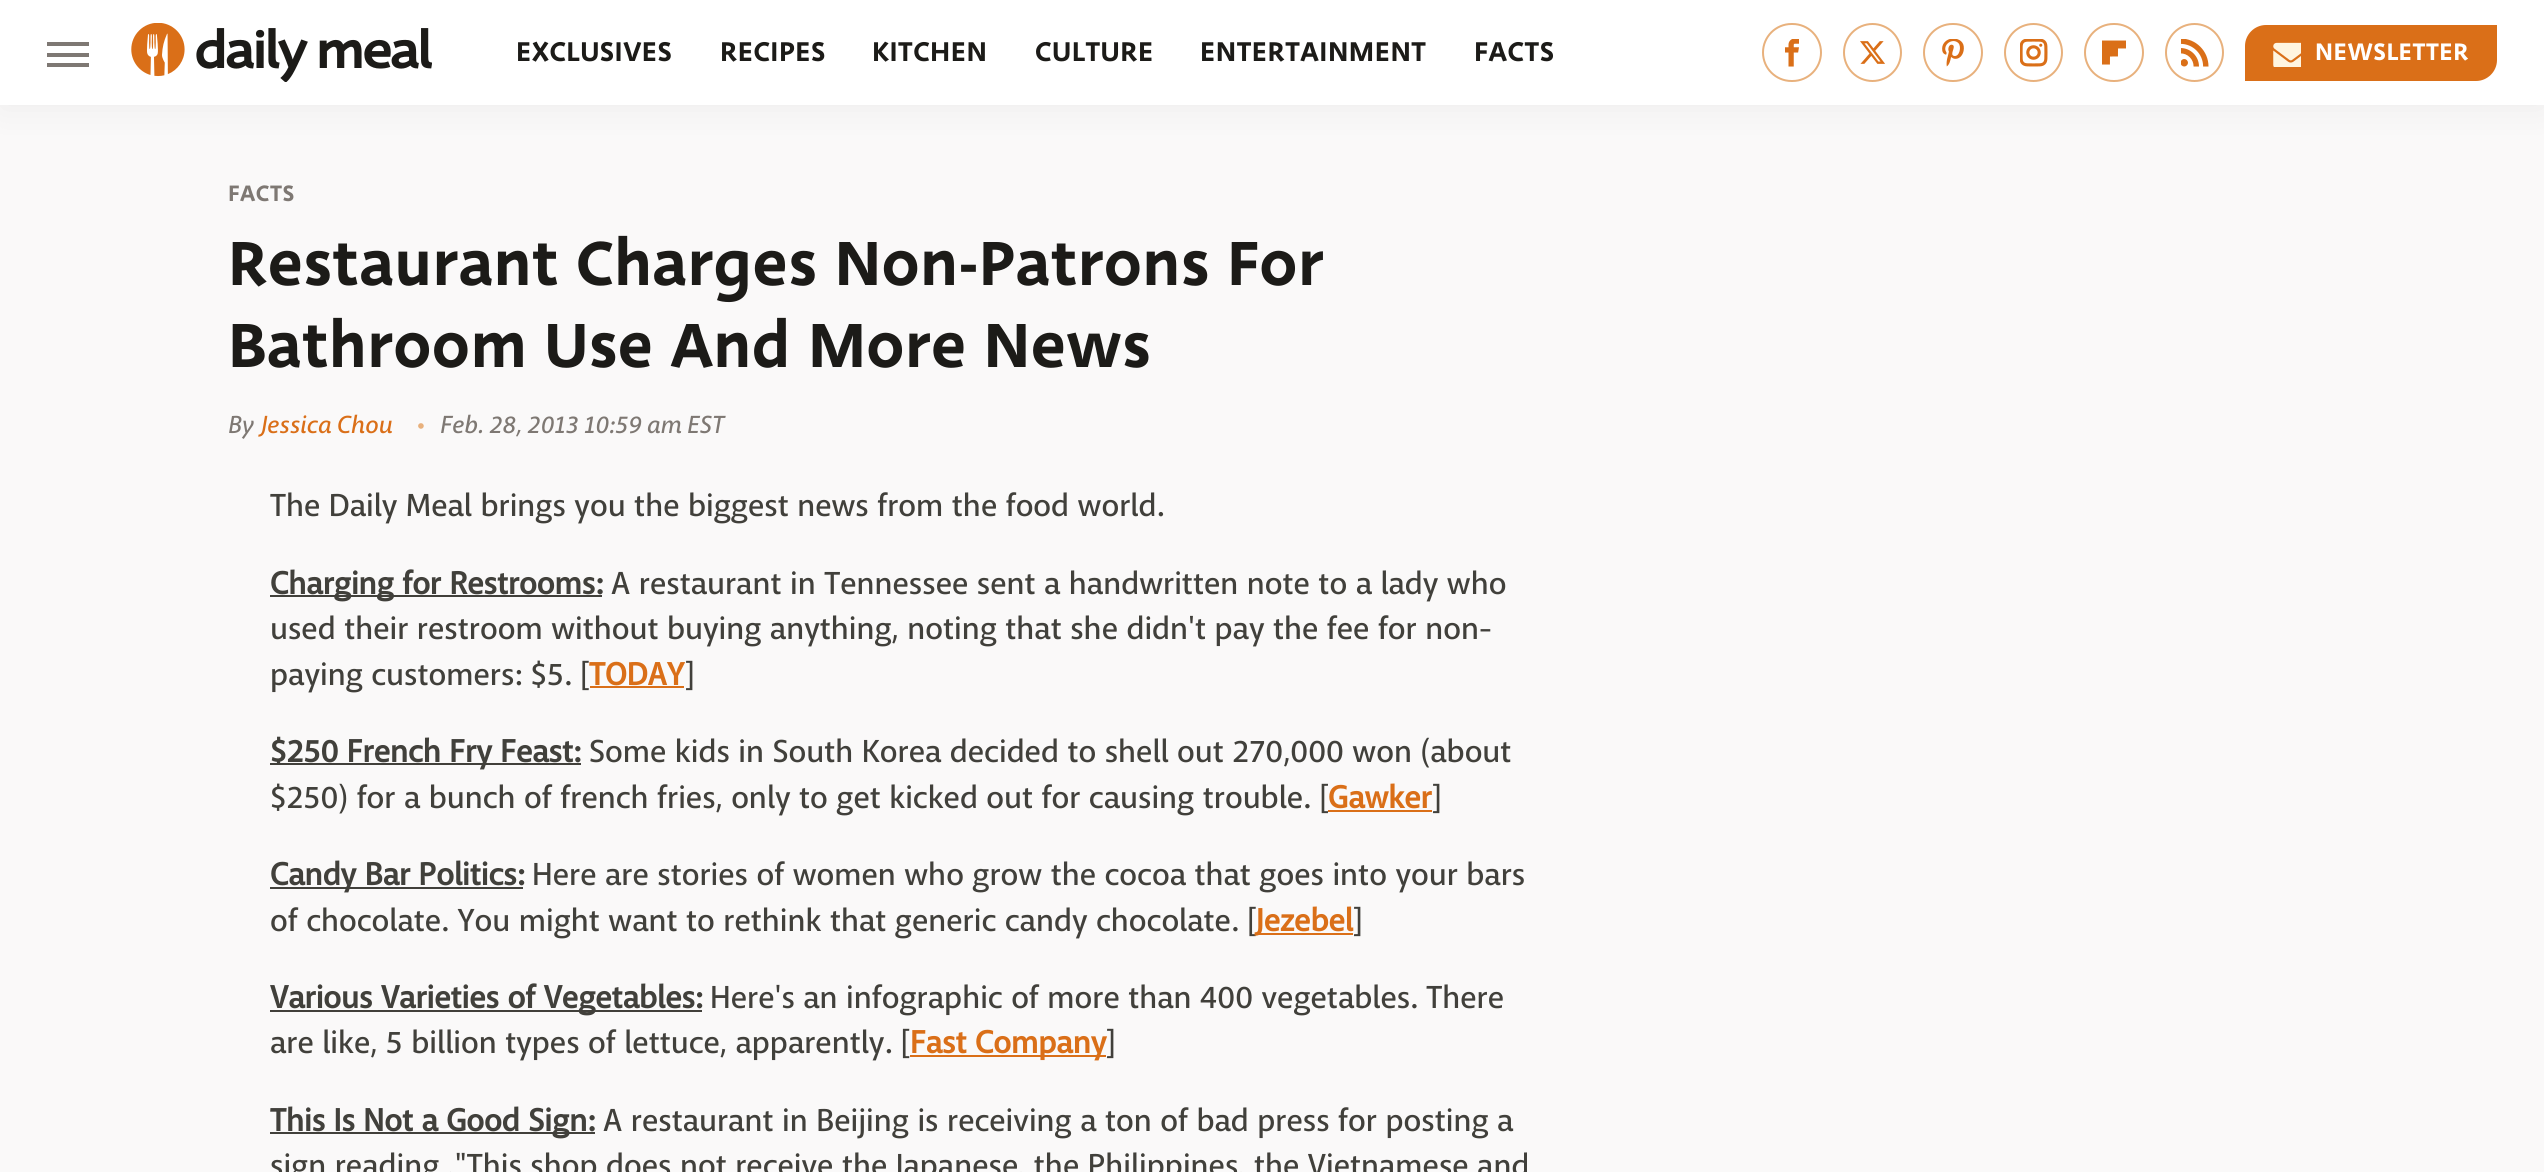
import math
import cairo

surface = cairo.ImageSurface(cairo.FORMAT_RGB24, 2544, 1172)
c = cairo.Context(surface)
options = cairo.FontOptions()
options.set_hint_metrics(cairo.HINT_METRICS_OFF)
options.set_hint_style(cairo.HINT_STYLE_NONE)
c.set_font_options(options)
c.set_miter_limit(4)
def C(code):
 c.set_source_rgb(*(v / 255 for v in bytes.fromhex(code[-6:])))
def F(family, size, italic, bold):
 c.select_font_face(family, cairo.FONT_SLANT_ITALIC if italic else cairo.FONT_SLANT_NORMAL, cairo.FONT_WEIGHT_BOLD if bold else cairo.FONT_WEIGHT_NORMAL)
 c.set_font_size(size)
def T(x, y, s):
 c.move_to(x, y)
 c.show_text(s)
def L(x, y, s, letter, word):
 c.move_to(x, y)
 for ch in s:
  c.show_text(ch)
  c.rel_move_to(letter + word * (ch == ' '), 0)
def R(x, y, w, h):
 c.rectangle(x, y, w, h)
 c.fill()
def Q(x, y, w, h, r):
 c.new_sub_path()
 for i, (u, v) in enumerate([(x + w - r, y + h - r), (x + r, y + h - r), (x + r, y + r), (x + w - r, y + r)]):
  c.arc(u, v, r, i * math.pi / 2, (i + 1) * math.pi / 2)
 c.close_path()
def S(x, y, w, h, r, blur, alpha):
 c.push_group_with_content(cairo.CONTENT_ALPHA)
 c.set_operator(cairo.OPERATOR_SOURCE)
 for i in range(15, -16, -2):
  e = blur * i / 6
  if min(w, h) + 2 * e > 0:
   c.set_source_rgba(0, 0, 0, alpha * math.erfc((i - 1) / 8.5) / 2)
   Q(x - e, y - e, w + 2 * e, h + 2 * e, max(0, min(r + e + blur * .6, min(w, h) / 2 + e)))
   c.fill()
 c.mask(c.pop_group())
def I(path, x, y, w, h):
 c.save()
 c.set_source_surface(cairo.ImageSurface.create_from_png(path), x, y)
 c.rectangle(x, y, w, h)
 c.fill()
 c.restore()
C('faf9f9')
c.paint()
C('000000')
S(0,4,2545,105,0,17.5,.05)
C('ffffff')
R(0,0,2544,105)
C('7e7873')
R(47,42,42,4)
R(47,53,42,4)
R(47,63,42,4)
I('1.png',131,23,301,59)
F('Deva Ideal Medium',29.75,0,0)
C('1c1b18')
L(516,61,'EXCLUSIVES',.5,0)
L(720,61,'RECIPES',.5,0)
L(872,61,'KITCHEN',.5,0)
L(1035,61,'CULTURE',.5,0)
L(1200,61,'ENTERTAINMENT',.5,0)
L(1474,61,'FACTS',.5,0)
Q(1763,24,58,57,28.5)
C('e8b17d')
c.stroke()
I('2.png',1785,39,14,28)
c.arc(1872.5,52.5,28.5,0,2 * math.pi)
c.stroke()
I('3.png',1860,41,25,23)
Q(1924,24,58,57,28.5)
c.stroke()
I('4.png',1942,39,22,28)
c.arc(2033.5,52.5,28.5,0,2 * math.pi)
c.stroke()
I('5.png',2020,39,28,28)
Q(2085,24,58,57,28.5)
c.stroke()
I('6.png',2102,40,24,25)
c.arc(2194.5,52.5,28.5,0,2 * math.pi)
c.stroke()
I('7.png',2181,39,28,28)
C('da6f18')
c.new_path()
c.move_to(2266,25)
c.line_to(2497,25)
c.line_to(2497,60)
c.curve_to(2497,71.5,2487.5,81,2476,81)
c.line_to(2245,81)
c.line_to(2245,46)
c.curve_to(2245,34.5,2254.5,25,2266,25)
c.close_path()
c.fill()
I('8.png',2273,42,28,25)
F('Deva Ideal Medium',26.25,0,0)
C('ffffff')
L(2315,60,'NEWSLETTER',.5,0)
F('Deva Ideal Medium',24.5,0,0)
C('7e7873')
L(228,201,'FACTS',.5,0)
F('Deva Ideal Medium',68.25,0,0)
C('1c1b18')
T(228,285,'Restaurant Charges Non-Patrons For')
T(228,367,'Bathroom Use And More News')
F('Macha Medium',24.5,0,0)
C('7e7873')
L(228,433,'By',.2,0)
C('da6f18')
L(261,433,'Jessica Chou',.2,0)
F('Macha Medium',26.25,0,0)
C('e8b17d')
L(417,433,'•',.2,0)
F('Macha Medium',24.5,0,0)
C('7e7873')
L(440,433,'Feb. 28, 2013 10:59 am EST',.2,0)
F('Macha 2 Medium',31.5,0,0)
C('41403b')
T(270,516,'The Daily Meal brings you the biggest news from the food world.')
R(270,595,332,2)
F('Macha',31.5,0,1)
T(270,594,'Charging for Restrooms:')
F('Macha 2 Medium',31.5,0,0)
T(611,594,'A restaurant in Tennessee sent a handwritten note to a lady who')
T(270,639,'used their restroom without buying anything, noting that she didn\'t pay the fee for non-')
T(270,685,'paying customers: $5. [')
F('Macha',31.5,0,1)
C('da6f18')
T(589,685,'TODAY')
R(590,686,94,2)
F('Macha 2 Medium',31.5,0,0)
C('41403b')
T(685,685,']')
R(270,763,311,2)
F('Macha',31.5,0,1)
T(270,762,'$250 French Fry Feast:')
F('Macha 2 Medium',31.5,0,0)
T(589,762,'Some kids in South Korea decided to shell out 270,000 won (about')
T(270,808,'$250) for a bunch of french fries, only to get kicked out for causing trouble. [')
F('Macha',31.5,0,1)
C('da6f18')
T(1328,808,'Gawker')
R(1328,810,104,2)
F('Macha 2 Medium',31.5,0,0)
C('41403b')
T(1432,808,']')
R(270,887,253,2)
F('Macha',31.5,0,1)
T(270,885,'Candy Bar Politics:')
F('Macha 2 Medium',31.5,0,0)
T(532,885,'Here are stories of women who grow the cocoa that goes into your bars')
T(270,931,'of chocolate. You might want to rethink that generic candy chocolate. [')
C('da6f18')
R(1257,933,96,2)
F('Macha',31.5,0,1)
T(1256,931,'Jezebel')
F('Macha 2 Medium',31.5,0,0)
C('41403b')
T(1353,931,']')
R(270,1010,432,2)
F('Macha',31.5,0,1)
T(270,1008,'Various Varieties of Vegetables:')
F('Macha 2 Medium',31.5,0,0)
T(710,1008,'Here\'s an infographic of more than 400 vegetables. There')
T(270,1053,'are like, 5 billion types of lettuce, apparently. [')
C('da6f18')
R(910,1055,196,2)
F('Macha',31.5,0,1)
T(910,1053,'Fast Company')
F('Macha 2 Medium',31.5,0,0)
C('41403b')
T(1106,1053,']')
R(270,1132,325,2)
F('Macha',31.5,0,1)
T(270,1131,'This Is Not a Good Sign:')
F('Macha 2 Medium',31.5,0,0)
T(603,1131,'A restaurant in Beijing is receiving a ton of bad press for posting a')
T(270,1176,'sign reading ,"This shop does not receive the Japanese, the Philippines, the Vietnamese and')
surface.write_to_png('o.png')
